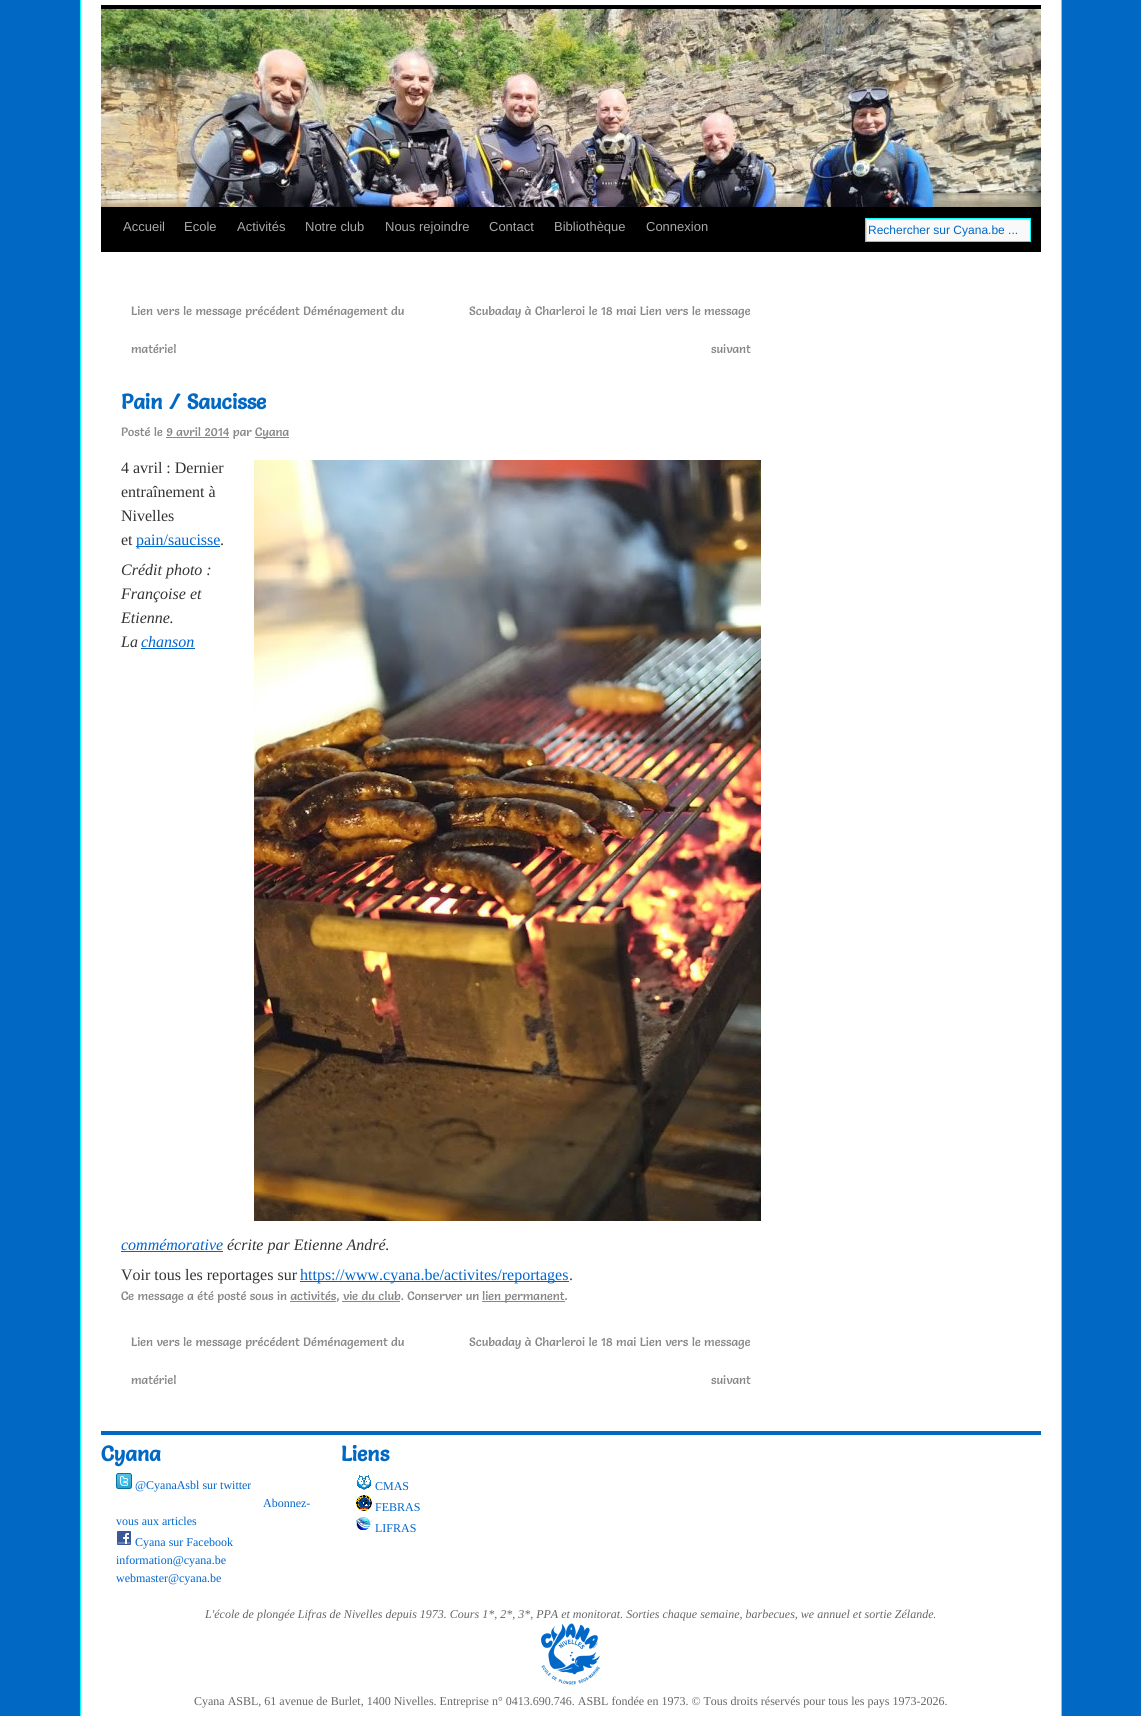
import math
import cairo

surface = cairo.ImageSurface(cairo.FORMAT_RGB24, 1141, 1716)
c = cairo.Context(surface)
options = cairo.FontOptions()
options.set_hint_metrics(cairo.HINT_METRICS_OFF)
options.set_hint_style(cairo.HINT_STYLE_NONE)
c.set_font_options(options)
c.set_miter_limit(4)
def C(code):
 c.set_source_rgb(*(v / 255 for v in bytes.fromhex(code[-6:])))
def F(family, size, italic, bold):
 c.select_font_face(family, cairo.FONT_SLANT_ITALIC if italic else cairo.FONT_SLANT_NORMAL, cairo.FONT_WEIGHT_BOLD if bold else cairo.FONT_WEIGHT_NORMAL)
 c.set_font_size(size)
def T(x, y, s):
 c.move_to(x, y)
 c.show_text(s)
def R(x, y, w, h):
 c.rectangle(x, y, w, h)
 c.fill()
def I(path, x, y, w, h):
 c.save()
 c.set_source_surface(cairo.ImageSurface.create_from_png(path), x, y)
 c.rectangle(x, y, w, h)
 c.fill()
 c.restore()
C('0168c4')
c.paint()
C('ffffff')
c.rectangle(80.5,-.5,981,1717)
c.fill_preserve()
C('00ffff')
c.set_line_width(1)
c.stroke()
C('000000')
R(101,5,940,4)
R(101,207,940,45)
I('1.png',101,9,940,198)
F('Liberation Sans',13,0,0)
C('aaaaaa')
T(123,231,'Accueil')
T(184,231,'Ecole')
T(237,231,'Activités')
T(305,231,'Notre club')
T(385,231,'Nous rejoindre')
T(489,231,'Contact')
T(554,231,'Bibliothèque')
T(646,231,'Connexion')
C('f9f9f9')
R(867,220,163,21)
c.save()
c.rectangle(866,219,164,22)
c.clip()
C('e0e0e0')
c.set_fill_rule(cairo.FILL_RULE_EVEN_ODD)
c.new_path()
c.move_to(767,120)
c.line_to(1129,120)
c.line_to(1129,340)
c.line_to(767,340)
c.close_path()
c.move_to(867,220)
c.line_to(1031,220)
c.line_to(1031,242)
c.line_to(867,242)
c.close_path()
c.fill()
c.restore()
c.rectangle(865.5,218.5,165,23)
C('00ffff')
c.stroke()
F('Liberation Sans',12,0,0)
C('0168c4')
T(868,234,'Rechercher sur Cyana.be ...')
F('Salsa',12,0,0)
C('888888')
T(131,315,'Lien vers le message précédent Déménagement du')
T(131,353,'matériel')
T(469,315,'Scubaday à Charleroi le 18 mai Lien vers le message')
T(711,353,'suivant')
F('Salsa',21,0,1)
C('0168c4')
T(121,409,'Pain / Saucisse')
F('Salsa',12,0,0)
C('888888')
T(121,436,'Posté le 9 avril 2014 par')
R(255,437,34,1)
T(255,436,'Cyana')
R(166,437,63,1)
F('Liberation Serif',16,0,0)
C('333333')
T(121,473,'4 avril : Dernier')
T(121,497,'entraînement à')
T(121,521,'Nivelles')
T(121,545,'et')
C('0066cc')
R(136,546,84,1)
T(136,545,'pain/saucisse')
C('333333')
T(220,545,'.')
I('2.png',254,460,507,761)
F('Liberation Serif',16,1,0)
T(121,575,'Crédit photo :')
T(121,599,'Françoise et')
T(121,623,'Etienne.')
T(121,647,'La')
C('0066cc')
T(141,647,'chanson')
R(141,648,54,1)
T(121,1250,'commémorative')
R(121,1251,102,1)
C('333333')
T(227,1250,'écrite par Etienne André.')
F('Liberation Serif',16,0,0)
T(121,1280,'Voir tous les reportages sur')
C('0066cc')
R(300,1281,144,1)
T(300,1280,'https://www.cyana.be/')
R(444,1281,125,1)
T(444,1280,'activites/reportages')
C('444444')
T(569,1280,'.')
F('Salsa',12,0,0)
C('888888')
T(121,1300,'Ce message a été posté sous in activités, vie du club. Conserver un')
R(482,1301,83,1)
T(482,1300,'lien permanent.')
R(290,1301,46,1)
R(342,1301,58,1)
T(131,1346,'Lien vers le message précédent Déménagement du')
T(131,1384,'matériel')
T(469,1346,'Scubaday à Charleroi le 18 mai Lien vers le message')
T(711,1384,'suivant')
C('0168c4')
R(101,1431,940,4)
F('Salsa',21,0,1)
T(101,1461,'Cyana')
I('3.png',116,1473,16,16)
F('Liberation Serif',12,0,0)
C('0066cc')
T(135,1489,'@CyanaAsbl sur twitter')
T(263,1507,'Abonnez-')
T(116,1525,'vous aux articles')
I('4.png',117,1531,14,14)
T(135,1546,'Cyana sur Facebook')
T(116,1564,'information@cyana.be')
T(116,1582,'webmaster@cyana.be')
F('Salsa',21,0,1)
C('0168c4')
T(341,1461,'Liens')
I('5.png',357,1474,14,16)
F('Liberation Serif',12,0,0)
C('0066cc')
T(375,1490,'CMAS')
I('6.png',356,1495,16,16)
T(375,1511,'FEBRAS')
I('7.png',356,1517,16,13)
T(375,1532,'LIFRAS')
F('Liberation Serif',12,1,0)
C('666666')
T(205,1618,'L\'école de plongée Lifras de Nivelles depuis 1973. Cours 1*, 2*, 3*, PPA et monitorat. Sorties chaque semaine, barbecues, we annuel et sortie Zélande.')
I('8.png',541,1623,59,62)
F('Liberation Serif',12,0,0)
T(194,1705,'Cyana ASBL, 61 avenue de Burlet, 1400 Nivelles. Entreprise n° 0413.690.746. ASBL fondée en 1973. © Tous droits réservés pour tous les pays 1973-2026.')
surface.write_to_png('o.png')
